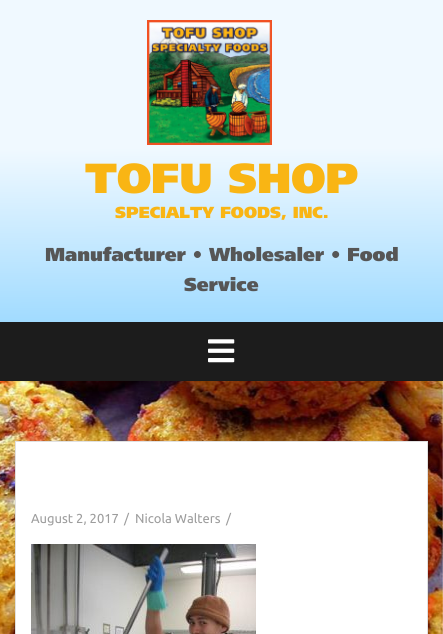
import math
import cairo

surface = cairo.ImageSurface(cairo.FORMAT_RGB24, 443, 634)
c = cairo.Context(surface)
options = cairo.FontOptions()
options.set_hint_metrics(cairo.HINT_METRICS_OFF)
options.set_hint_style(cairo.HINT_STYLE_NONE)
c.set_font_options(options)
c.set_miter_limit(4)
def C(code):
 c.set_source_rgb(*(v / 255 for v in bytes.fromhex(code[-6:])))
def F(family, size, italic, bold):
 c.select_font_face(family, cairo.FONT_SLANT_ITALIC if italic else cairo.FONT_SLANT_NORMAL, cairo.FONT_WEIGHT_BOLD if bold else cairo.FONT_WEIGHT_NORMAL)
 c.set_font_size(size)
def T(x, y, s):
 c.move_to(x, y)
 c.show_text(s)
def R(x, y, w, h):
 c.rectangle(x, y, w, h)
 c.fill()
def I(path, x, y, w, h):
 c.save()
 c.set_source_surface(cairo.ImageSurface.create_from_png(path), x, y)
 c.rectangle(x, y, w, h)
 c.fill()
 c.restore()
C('ffffff')
c.paint()
I('1.png',0,381,443,253)
gradient = cairo.LinearGradient(221,0,222,322)
gradient.add_color_stop_rgba(.46,0.941,0.976,1,1)
gradient.add_color_stop_rgba(1,0.631,0.859,1,1)
c.set_source(gradient)
R(0,0,443,322)
I('2.png',147,20,125,125)
F('Frutiger ExtraBold',42,0,0)
C('f9b514')
T(85,193,'TOFU SHOP')
F('Frutiger ExtraBold',16,0,0)
T(115,218,'SPECIALTY FOODS, INC.')
F('Frutiger ExtraBold',18.7,0,0)
C('565656')
T(45,261,'Manufacturer • Wholesaler • Food')
T(184,291,'Service')
C('1c1c1c')
R(0,322,443,59)
I('3.png',208,339,27,24)
C('ffffff')
c.rectangle(15.5,441.5,412,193)
c.fill_preserve()
C('e0e0e0')
c.set_line_width(1)
c.stroke()
F('Ubuntu',13,0,0)
C('9d9d9d')
T(31,523,'August 2, 2017')
T(124,523,'/')
T(135,523,'Nicola Walters')
T(226,523,'/')
I('4.png',31,544,225,90)
surface.write_to_png('o.png')
